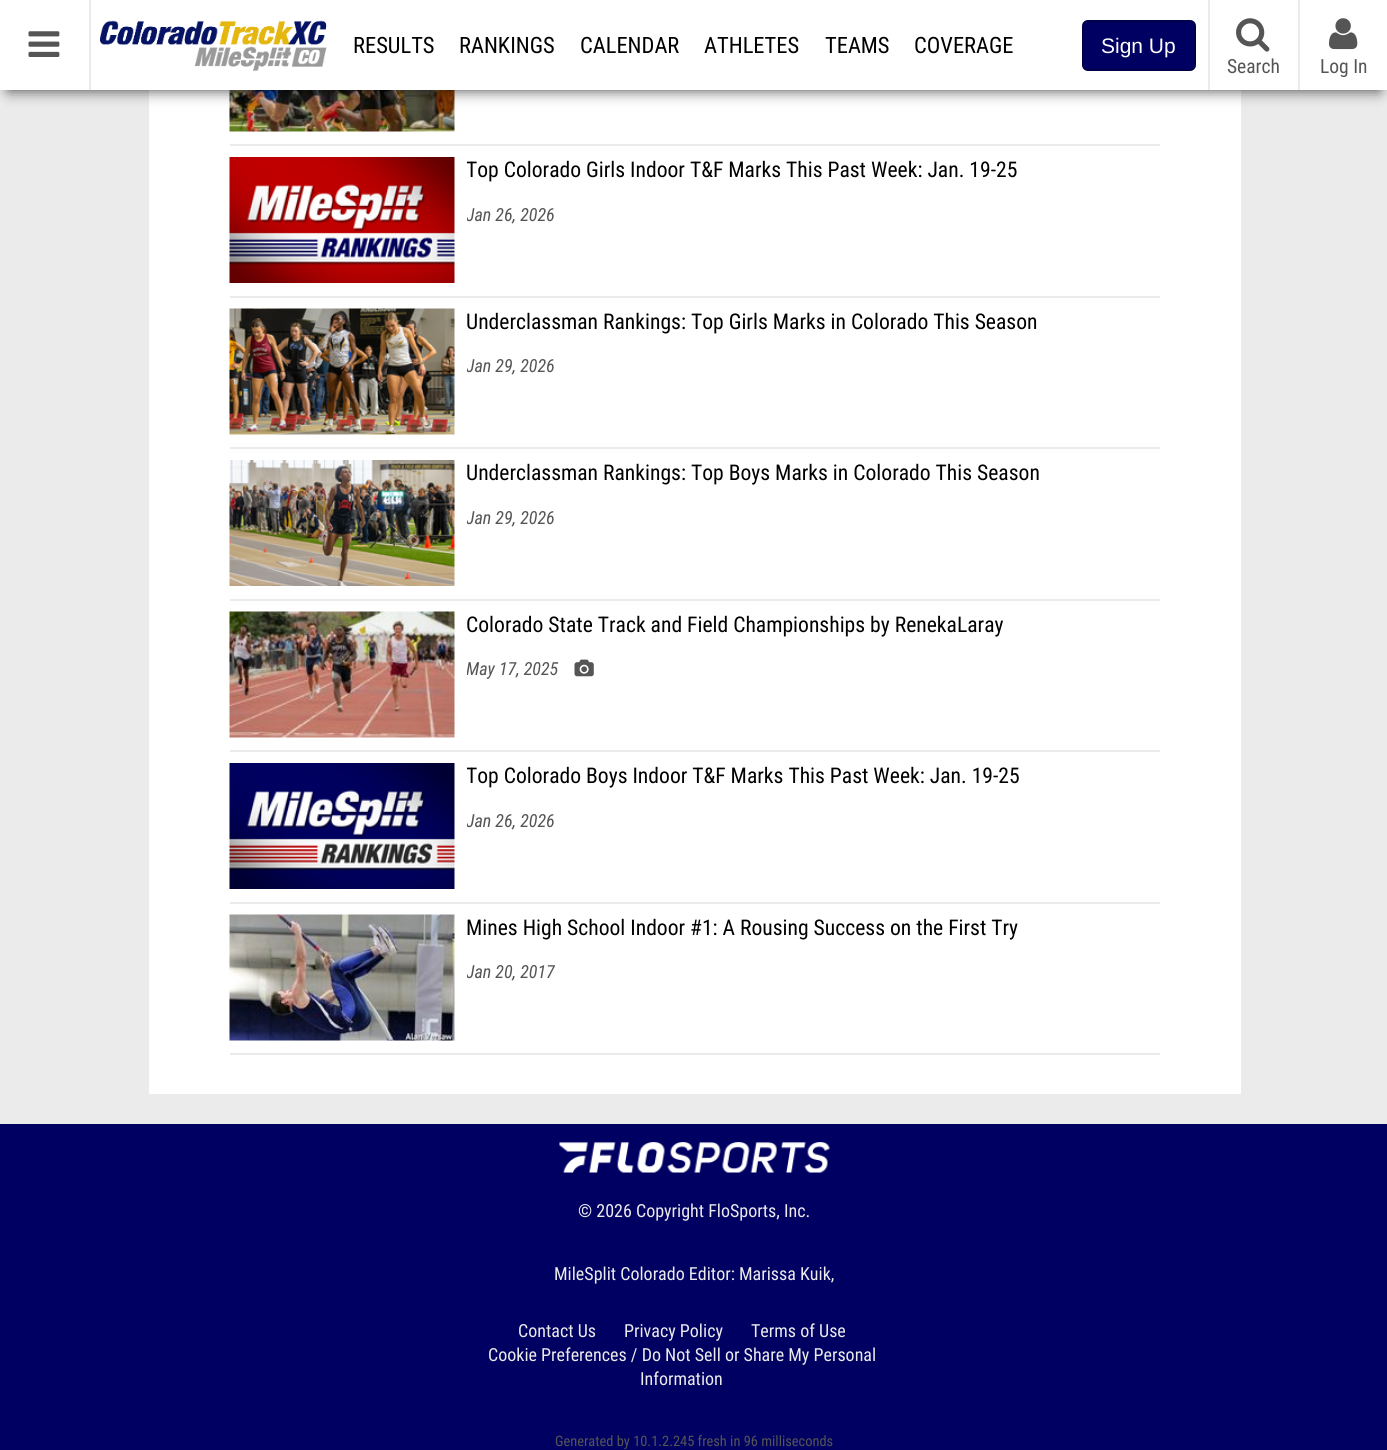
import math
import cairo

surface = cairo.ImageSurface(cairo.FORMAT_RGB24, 1387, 1450)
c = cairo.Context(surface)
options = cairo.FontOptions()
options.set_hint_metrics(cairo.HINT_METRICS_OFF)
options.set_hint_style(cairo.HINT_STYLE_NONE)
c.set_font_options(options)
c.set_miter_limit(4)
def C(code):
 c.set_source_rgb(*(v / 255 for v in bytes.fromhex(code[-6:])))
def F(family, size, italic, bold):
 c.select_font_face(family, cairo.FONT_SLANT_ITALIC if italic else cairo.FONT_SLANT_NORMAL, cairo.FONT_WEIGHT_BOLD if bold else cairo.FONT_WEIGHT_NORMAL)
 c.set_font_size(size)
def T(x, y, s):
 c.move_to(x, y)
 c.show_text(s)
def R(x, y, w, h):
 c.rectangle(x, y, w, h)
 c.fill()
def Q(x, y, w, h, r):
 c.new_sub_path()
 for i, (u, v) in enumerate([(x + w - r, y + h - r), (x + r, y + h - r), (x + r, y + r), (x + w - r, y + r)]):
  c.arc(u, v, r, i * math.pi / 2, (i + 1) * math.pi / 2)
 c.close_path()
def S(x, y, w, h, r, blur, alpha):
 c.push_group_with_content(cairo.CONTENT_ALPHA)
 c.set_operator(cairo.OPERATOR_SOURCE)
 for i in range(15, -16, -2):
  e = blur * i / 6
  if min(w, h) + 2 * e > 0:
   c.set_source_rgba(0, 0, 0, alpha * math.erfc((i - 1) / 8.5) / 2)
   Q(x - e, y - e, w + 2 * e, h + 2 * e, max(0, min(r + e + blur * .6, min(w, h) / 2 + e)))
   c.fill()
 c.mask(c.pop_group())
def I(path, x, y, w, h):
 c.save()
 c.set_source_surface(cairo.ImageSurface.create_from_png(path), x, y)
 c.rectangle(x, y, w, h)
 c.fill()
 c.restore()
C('ebebeb')
c.paint()
C('ffffff')
R(149,90,1092,1004)
I('5.png',229,90,226,42)
C('000000')
S(9,18,1370,72,0,7.5,.75)
C('ffffff')
R(0,0,1387,90)
I('1.png',99,20,228,51)
C('ebebeb')
R(89,0,2,90)
I('2.png',28,31,32,26)
F('Roboto Condensed',22.5,0,0)
C('000000')
T(353,53,'RESULTS')
T(459,53,'RANKINGS')
T(580,53,'CALENDAR')
T(704,53,'ATHLETES')
T(825,53,'TEAMS')
T(914,53,'COVERAGE')
C('000062')
Q(1083,21,112,49,5)
c.fill_preserve()
C('000049')
c.stroke()
F('Liberation Sans',21,0,0)
C('ffffff')
T(1101,53,'Sign Up')
C('ebebeb')
R(1208,0,2,90)
I('3.png',1236,18,34,34)
F('Roboto Condensed',19.5,0,0)
C('555555')
T(1227,73,'Search')
C('ebebeb')
R(1298,0,2,90)
I('4.png',1329,18,29,32)
C('555555')
T(1320,73,'Log In')
C('ebebeb')
R(230,144,930,2)
R(230,296,930,2)
I('6.png',229,157,226,126)
c.save()
c.rectangle(467,158,693,27)
c.clip()
F('Roboto Condensed',21.6,0,0)
C('000000')
T(466,177,'Top Colorado Girls Indoor T&F Marks This Past Week: Jan. 19-25')
c.restore()
c.save()
c.rectangle(467,158,693,126)
c.clip()
F('Roboto Condensed',18,1,0)
C('555555')
T(466,221,'Jan 26, 2026')
c.restore()
R(230,447,930,2)
I('7.png',229,308,226,127)
F('Roboto Condensed',21.6,0,0)
C('000000')
T(466,329,'Underclassman Rankings: Top Girls Marks in Colorado This Season')
c.save()
c.rectangle(467,309,693,126)
c.clip()
F('Roboto Condensed',18,1,0)
C('555555')
T(466,372,'Jan 29, 2026')
c.restore()
C('ebebeb')
R(230,599,930,2)
I('8.png',229,460,226,126)
C('000000')
T(466,480,'Underclassman Rankings: Top Boys Marks in Colorado This Season')
c.save()
c.rectangle(467,461,693,126)
c.clip()
F('Roboto Condensed',18,1,0)
C('555555')
T(466,524,'Jan 29, 2026')
c.restore()
C('ebebeb')
R(230,750,930,2)
I('9.png',229,611,226,127)
C('000000')
T(466,632,'Colorado State Track and Field Championships by RenekaLaray')
c.save()
c.rectangle(467,612,693,126)
c.clip()
F('Roboto Condensed',18,1,0)
C('555555')
T(466,675,'May 17, 2025')
c.restore()
I('10.png',574,659,20,18)
C('ebebeb')
R(230,902,930,2)
I('11.png',229,763,226,126)
c.save()
c.rectangle(467,764,693,27)
c.clip()
C('000000')
T(466,783,'Top Colorado Boys Indoor T&F Marks This Past Week: Jan. 19-25')
c.restore()
c.save()
c.rectangle(467,764,693,126)
c.clip()
F('Roboto Condensed',18,1,0)
C('555555')
T(466,827,'Jan 26, 2026')
c.restore()
R(230,1053,930,2)
I('12.png',229,914,226,127)
C('000000')
T(466,935,'Mines High School Indoor #1: A Rousing Success on the First Try')
c.save()
c.rectangle(467,915,693,126)
c.clip()
F('Roboto Condensed',18,1,0)
C('555555')
T(466,978,'Jan 20, 2017')
c.restore()
C('000062')
R(0,1124,1387,326)
I('13.png',559,1142,271,31)
F('Roboto Condensed',18,0,0)
C('ebebeb')
T(578,1217,'© 2026 Copyright FloSports, Inc.')
T(554,1280,'MileSplit Colorado Editor: Marissa Kuik,')
T(518,1337,'Contact Us')
T(624,1337,'Privacy Policy')
T(751,1337,'Terms of Use')
T(488,1361,'Cookie Preferences / Do Not Sell or Share My Personal')
T(640,1385,'Information')
F('Roboto Condensed',14.4,0,0)
C('555555')
T(555,1446,'Generated by 10.1.2.245 fresh in 96 milliseconds')
surface.write_to_png('o.png')
